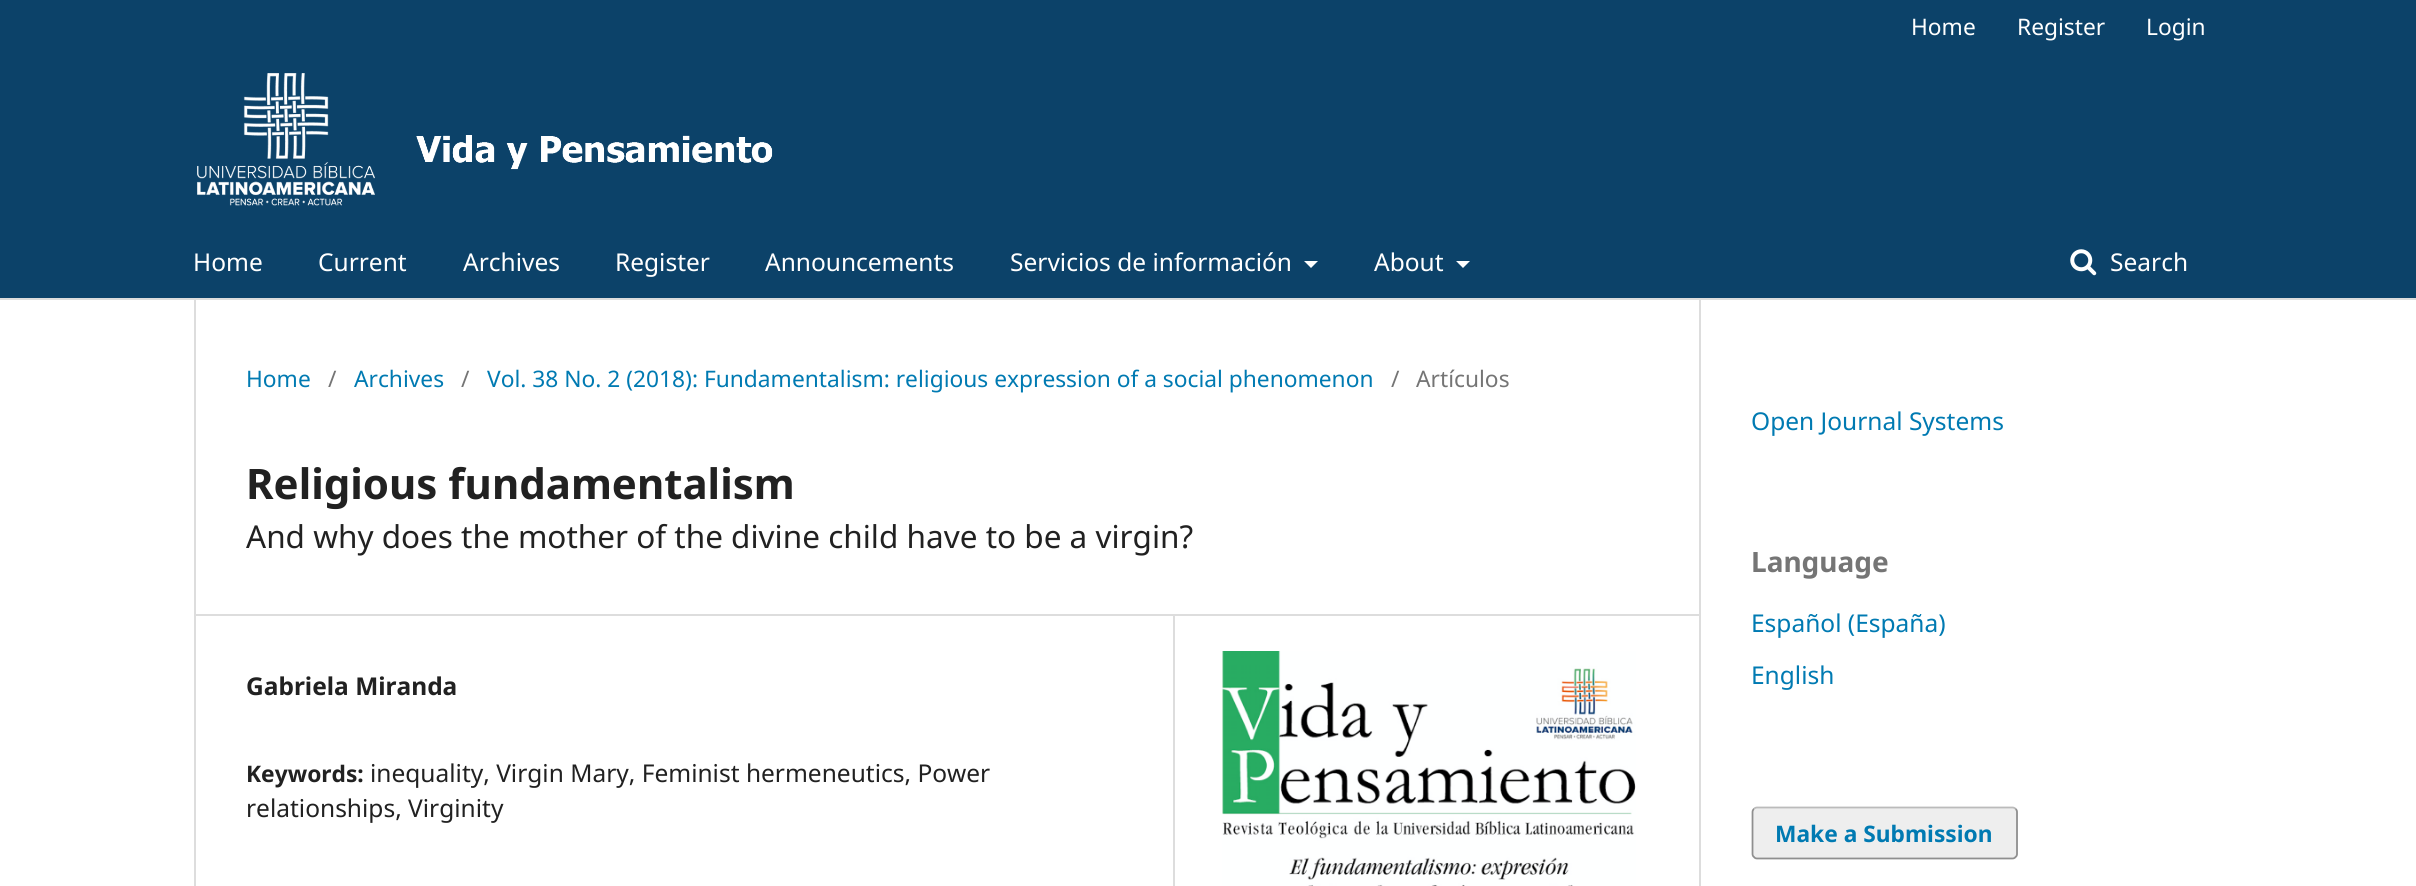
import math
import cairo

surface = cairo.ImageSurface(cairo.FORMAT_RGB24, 2416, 886)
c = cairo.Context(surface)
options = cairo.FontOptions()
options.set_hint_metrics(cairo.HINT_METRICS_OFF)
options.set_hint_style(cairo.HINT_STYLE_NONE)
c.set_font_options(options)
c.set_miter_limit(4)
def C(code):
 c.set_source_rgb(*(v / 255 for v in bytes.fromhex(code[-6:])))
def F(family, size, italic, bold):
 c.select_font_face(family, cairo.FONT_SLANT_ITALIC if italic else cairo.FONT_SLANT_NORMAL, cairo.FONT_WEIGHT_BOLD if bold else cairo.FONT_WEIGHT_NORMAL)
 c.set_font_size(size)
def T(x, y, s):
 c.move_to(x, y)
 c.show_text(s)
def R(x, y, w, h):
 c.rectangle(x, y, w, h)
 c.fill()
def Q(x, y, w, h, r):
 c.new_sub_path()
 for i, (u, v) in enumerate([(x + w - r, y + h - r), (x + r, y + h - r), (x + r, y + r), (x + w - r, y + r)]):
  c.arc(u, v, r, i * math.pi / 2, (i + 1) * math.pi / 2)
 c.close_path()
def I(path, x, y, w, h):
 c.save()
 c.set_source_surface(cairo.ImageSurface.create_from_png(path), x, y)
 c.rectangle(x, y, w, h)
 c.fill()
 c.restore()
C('ffffff')
c.paint()
C('0c4269')
R(0,0,2416,298)
C('dddddd')
R(0,298,2416,2)
F('Noto Sans',22.75,0,0)
C('ffffff')
T(1911,35,'Home')
T(2017,35,'Register')
T(2146,35,'Login')
I('1.png',197,73,576,133)
F('Noto Sans',24.5,0,0)
T(193,271,'Home')
T(318,271,'Current')
T(463,271,'Archives')
T(615,271,'Register')
T(765,271,'Announcements')
T(1010,271,'Servicios de información')
c.new_path()
c.move_to(1304,261)
c.line_to(1318,261)
c.line_to(1311,268)
c.close_path()
c.fill()
T(1374,271,'About')
c.new_path()
c.move_to(1456,261)
c.line_to(1470,261)
c.line_to(1463,268)
c.close_path()
c.fill()
I('2.png',2070,249,27,27)
T(2110,271,'Search')
C('dddddd')
R(194,614,1505,2)
R(194,299,2,587)
F('Noto Sans',22.75,0,0)
C('007ab2')
T(246,387,'Home')
C('757575')
T(328,387,'/')
C('007ab2')
T(354,387,'Archives')
C('757575')
T(461,387,'/')
C('007ab2')
T(487,387,'Vol. 38 No. 2 (2018): Fundamentalism: religious expression of a social phenomenon')
C('757575')
T(1391,387,'/')
T(1416,387,'Artículos')
F('Noto Sans',42,0,1)
C('212121')
T(246,499,'Religious fundamentalism')
F('Noto Sans',31.5,0,0)
T(246,548,'And why does the mother of the divine child have to be a virgin?')
C('dddddd')
R(1173,616,2,270)
F('Noto Sans',24.5,0,1)
C('212121')
T(246,695,'Gabriela Miranda')
F('Noto Sans',22.75,0,1)
T(246,782,'Keywords:')
F('Noto Sans',24.5,0,0)
T(370,782,'inequality, Virgin Mary, Feminist hermeneutics, Power')
T(246,817,'relationships, Virginity')
I('3.png',1222,651,414,235)
C('dddddd')
R(1699,299,2,587)
C('007ab2')
T(1751,430,'Open Journal Systems')
F('Noto Sans',28,0,1)
C('757575')
T(1751,572,'Language')
F('Noto Sans',24.5,0,0)
C('007ab2')
T(1751,632,'Español (España)')
T(1751,684,'English')
C('eeeeee')
Q(1752,807,266,52,5)
c.fill()
c.new_path()
c.move_to(1754,809)
c.curve_to(1754.5,808,1756,807.5,1757,807.5)
c.line_to(2012.5,807.5)
c.curve_to(2013.5,807.5,2015,808,2015.5,809)
C('bbbbbb')
c.set_line_width(1.8)
c.stroke()
c.new_path()
c.move_to(2015.5,809)
c.curve_to(2016.5,809.5,2017,811,2017,812)
c.line_to(2017,854)
c.curve_to(2017,855,2016.5,856.5,2015.5,857)
c.curve_to(2015,858,2013.5,858.5,2012.5,858.5)
c.line_to(1757,858.5)
c.curve_to(1756,858.5,1754.5,858,1754,857)
c.curve_to(1753,856.5,1752.5,855,1752.5,854)
c.line_to(1752.5,812)
c.curve_to(1752.5,811,1753,809.5,1754,809)
c.set_source_rgba(0,0,0,0.4)
c.stroke()
F('Noto Sans',22.75,0,1)
C('007ab2')
T(1775,842,'Make a Submission')
surface.write_to_png('o.png')
